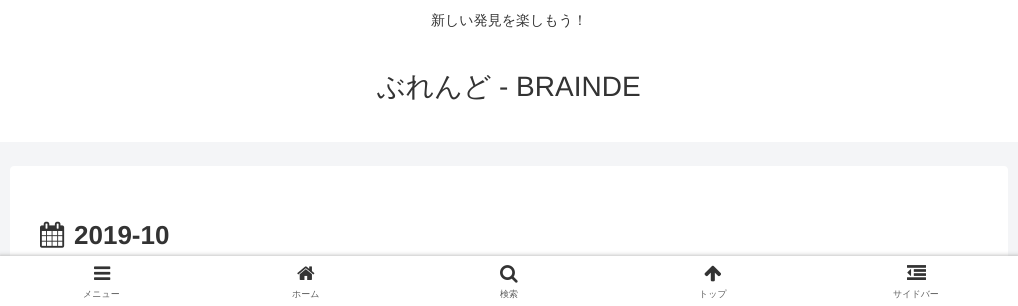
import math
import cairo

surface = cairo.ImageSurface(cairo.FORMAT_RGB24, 1018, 306)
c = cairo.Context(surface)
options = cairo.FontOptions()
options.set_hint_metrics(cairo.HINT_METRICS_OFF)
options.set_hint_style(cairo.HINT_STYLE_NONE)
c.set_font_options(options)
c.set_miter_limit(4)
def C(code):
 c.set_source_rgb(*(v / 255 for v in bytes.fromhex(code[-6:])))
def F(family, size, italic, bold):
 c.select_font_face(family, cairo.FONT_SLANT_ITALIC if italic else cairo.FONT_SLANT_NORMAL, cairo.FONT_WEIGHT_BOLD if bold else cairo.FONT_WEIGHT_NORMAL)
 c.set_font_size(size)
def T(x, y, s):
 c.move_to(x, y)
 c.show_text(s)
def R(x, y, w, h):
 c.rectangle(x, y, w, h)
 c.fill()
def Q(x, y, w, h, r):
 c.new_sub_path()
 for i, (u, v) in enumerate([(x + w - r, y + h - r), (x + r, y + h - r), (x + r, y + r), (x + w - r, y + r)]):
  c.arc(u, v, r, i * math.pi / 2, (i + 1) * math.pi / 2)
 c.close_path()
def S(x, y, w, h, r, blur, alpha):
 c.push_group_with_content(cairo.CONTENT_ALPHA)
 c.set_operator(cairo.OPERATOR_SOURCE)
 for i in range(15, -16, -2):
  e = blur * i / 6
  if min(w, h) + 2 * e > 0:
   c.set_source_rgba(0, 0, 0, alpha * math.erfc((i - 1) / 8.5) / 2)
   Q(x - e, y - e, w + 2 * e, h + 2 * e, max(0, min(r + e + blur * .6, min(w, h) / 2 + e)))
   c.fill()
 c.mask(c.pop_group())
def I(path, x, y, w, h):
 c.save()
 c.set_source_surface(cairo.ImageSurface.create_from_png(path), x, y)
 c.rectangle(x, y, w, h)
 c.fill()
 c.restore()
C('f4f5f7')
c.paint()
C('ffffff')
R(0,0,1018,142)
F('WenQuanYi Zen Hei Medium',14,0,0)
C('333333')
T(431,25,'新しい発見を楽しもう！')
F('WenQuanYi Zen Hei Medium',28,0,0)
T(377,96,'ぶれんど')
F('Liberation Sans',28,0,0)
T(499,96,'- BRAINDE')
C('ffffff')
Q(10,166,998,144,4)
c.fill()
I('1.png',40,221,25,27)
F('Liberation Sans',26,0,1)
C('333333')
T(74,244,'2019-10')
C('a9a9a9')
S(0,256,1018,50,0,2.5,1)
C('ffffff')
R(0,256,1018,50)
I('2.png',94,266,17,14)
F('WenQuanYi Zen Hei Medium',9,0,0)
C('5c5c5c')
T(83,297,'メニュー')
I('3.png',297,266,18,14)
T(292,297,'ホーム')
I('4.png',500,265,18,18)
T(500,297,'検索')
I('5.png',704,265,17,17)
T(699,297,'トップ')
I('6.png',907,265,19,15)
T(893,297,'サイドバー')
surface.write_to_png('o.png')
